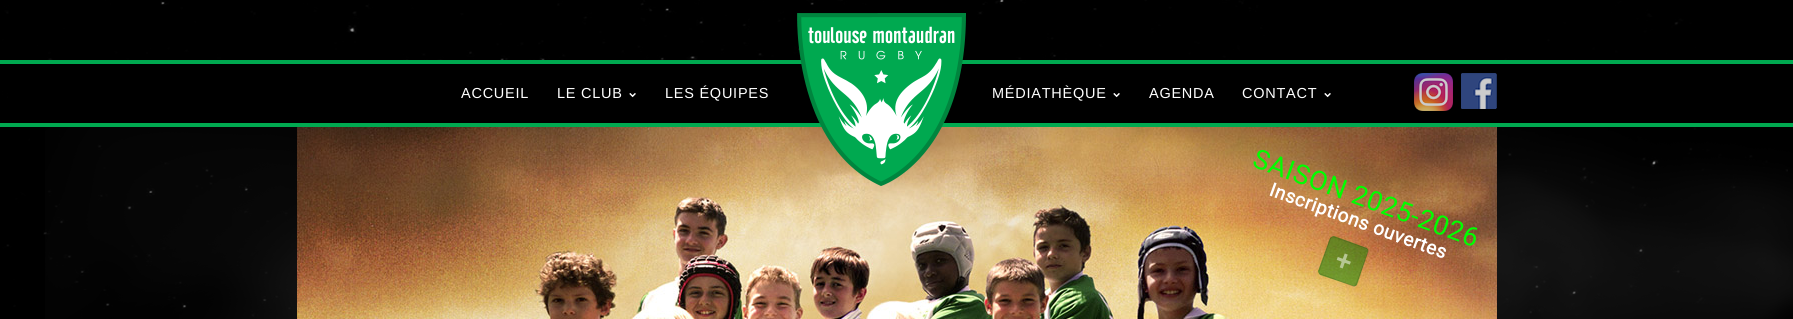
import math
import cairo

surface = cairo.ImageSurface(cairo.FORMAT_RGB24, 1793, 319)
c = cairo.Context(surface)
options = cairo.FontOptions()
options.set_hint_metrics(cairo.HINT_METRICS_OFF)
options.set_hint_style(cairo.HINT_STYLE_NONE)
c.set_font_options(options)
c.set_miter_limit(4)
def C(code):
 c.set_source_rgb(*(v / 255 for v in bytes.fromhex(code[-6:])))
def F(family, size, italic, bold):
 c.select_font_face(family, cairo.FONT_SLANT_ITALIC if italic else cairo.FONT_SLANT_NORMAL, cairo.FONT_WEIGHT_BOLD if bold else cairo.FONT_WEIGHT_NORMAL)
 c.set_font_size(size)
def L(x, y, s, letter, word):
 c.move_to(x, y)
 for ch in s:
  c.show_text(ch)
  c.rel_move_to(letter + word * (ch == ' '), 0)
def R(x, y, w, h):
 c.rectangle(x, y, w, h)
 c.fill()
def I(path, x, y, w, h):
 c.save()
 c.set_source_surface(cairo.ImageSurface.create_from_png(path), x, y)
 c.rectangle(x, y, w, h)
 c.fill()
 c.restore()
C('000000')
c.paint()
I('1.png',2,0,1786,319)
I('2.png',2,0,1768,319)
I('3.png',45,127,1748,192)
C('000000')
R(8,64,1763,59)
C('00a950')
R(0,60,1793,4)
R(0,123,1793,4)
F('Liberation Sans',14.5,0,0)
C('ffffff')
L(461,98,'ACCUEIL',.75,0)
L(557,98,'LE CLUB',.75,0)
I('4.png',629,93,7,5)
L(665,98,'LES ÉQUIPES',.75,0)
I('8.png',297,127,1200,192)
I('5.png',797,13,169,173)
L(992,98,'MÉDIATHÈQUE',.75,0)
I('4.png',1113,93,7,5)
L(1149,98,'AGENDA',.75,0)
L(1242,98,'CONTACT',.75,0)
I('4.png',1324,93,7,5)
I('6.png',1414,73,39,38)
I('7.png',1461,73,36,36)
F('Roboto',27,0,0)
C('00ff00')
c.save()
c.translate(1251,166)
c.rotate(20 * math.pi / 180)
L(0,0,'SAISON 2025-2026',.5,0)
c.restore()
F('Roboto',19,0,1)
C('ffffff')
c.save()
c.translate(1268,195)
c.rotate(20 * math.pi / 180)
L(0,0,'Inscriptions ouvertes',.5,0)
c.restore()
c.set_source_rgba(0,0.502,0,0.5)
c.new_path()
c.move_to(1334,236)
c.line_to(1367,248)
c.curve_to(1368,249,1369,251,1368,252)
c.line_to(1357,285)
c.curve_to(1356,286,1354,287,1353,286)
c.line_to(1320,275)
c.curve_to(1319,274,1318,272,1318,271)
c.line_to(1330,238)
c.curve_to(1331,237,1333,236,1334,236)
c.close_path()
c.fill()
c.new_path()
c.move_to(1334,237)
c.line_to(1366.5,248.5)
c.curve_to(1367.5,249,1368.5,250.5,1368,252)
c.line_to(1356,284.5)
c.curve_to(1355.5,285.5,1354,286.5,1353,286)
c.line_to(1320.5,274)
c.curve_to(1319,273.5,1318.5,272,1319,271)
c.line_to(1330.5,238.5)
c.curve_to(1331,237,1332.5,236.5,1334,237)
c.close_path()
c.set_source_rgba(0,0,0,0.13)
c.set_line_width(1)
c.stroke()
F('Roboto',27,0,1)
C('b6c693')
c.save()
c.translate(1333,267)
c.rotate(20 * math.pi / 180)
L(0,0,'+',.5,0)
c.restore()
surface.write_to_png('o.png')
